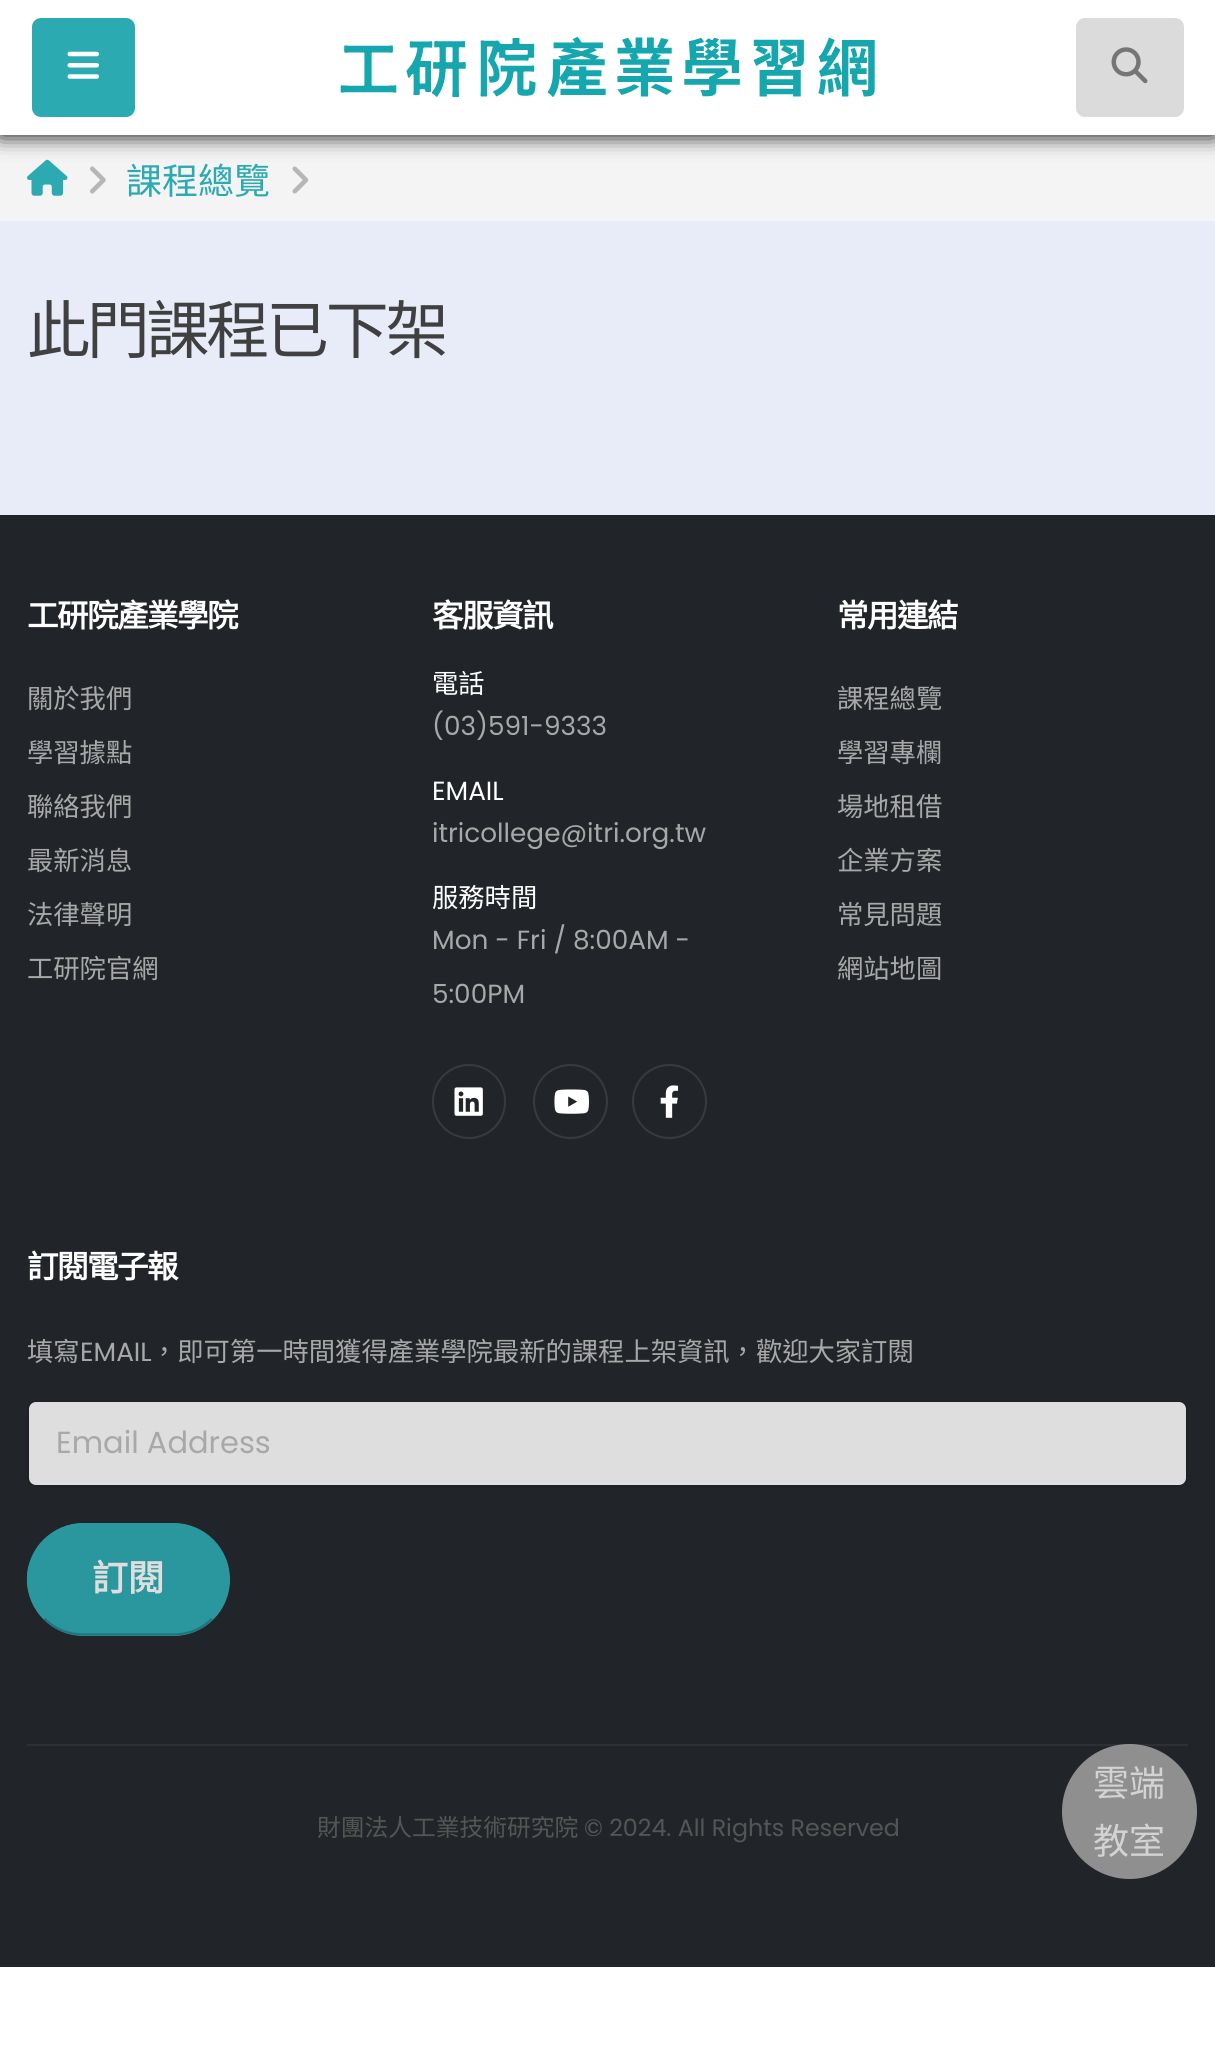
import math
import cairo

surface = cairo.ImageSurface(cairo.FORMAT_RGB24, 1215, 2063)
c = cairo.Context(surface)
options = cairo.FontOptions()
options.set_hint_metrics(cairo.HINT_METRICS_OFF)
options.set_hint_style(cairo.HINT_STYLE_NONE)
c.set_font_options(options)
c.set_miter_limit(4)
def C(code):
 c.set_source_rgb(*(v / 255 for v in bytes.fromhex(code[-6:])))
def F(family, size, italic, bold):
 c.select_font_face(family, cairo.FONT_SLANT_ITALIC if italic else cairo.FONT_SLANT_NORMAL, cairo.FONT_WEIGHT_BOLD if bold else cairo.FONT_WEIGHT_NORMAL)
 c.set_font_size(size)
def T(x, y, s):
 c.move_to(x, y)
 c.show_text(s)
def L(x, y, s, letter, word):
 c.move_to(x, y)
 for ch in s:
  c.show_text(ch)
  c.rel_move_to(letter + word * (ch == ' '), 0)
def R(x, y, w, h):
 c.rectangle(x, y, w, h)
 c.fill()
def Q(x, y, w, h, r):
 c.new_sub_path()
 for i, (u, v) in enumerate([(x + w - r, y + h - r), (x + r, y + h - r), (x + r, y + r), (x + w - r, y + r)]):
  c.arc(u, v, r, i * math.pi / 2, (i + 1) * math.pi / 2)
 c.close_path()
def S(x, y, w, h, r, blur, alpha):
 c.push_group_with_content(cairo.CONTENT_ALPHA)
 c.set_operator(cairo.OPERATOR_SOURCE)
 for i in range(15, -16, -2):
  e = blur * i / 6
  if min(w, h) + 2 * e > 0:
   c.set_source_rgba(0, 0, 0, alpha * math.erfc((i - 1) / 8.5) / 2)
   Q(x - e, y - e, w + 2 * e, h + 2 * e, max(0, min(r + e + blur * .6, min(w, h) / 2 + e)))
   c.fill()
 c.mask(c.pop_group())
def I(path, x, y, w, h):
 c.save()
 c.set_source_surface(cairo.ImageSurface.create_from_png(path), x, y)
 c.rectangle(x, y, w, h)
 c.fill()
 c.restore()
C('ffffff')
c.paint()
C('f4f4f4')
R(0,135,1215,86)
I('4.png',27,159,41,37)
I('5.png',90,166,16,28)
I('6.png',292,166,17,28)
C('000000')
S(0,0,1215,135,0,11,1)
C('ffffff')
R(0,0,1215,135)
C('2baab1')
Q(32,18,103,99,9)
c.fill()
I('1.png',67,51,32,28)
I('2.png',340,36,535,62)
C('dbdbdb')
Q(1076,18,108,99,9)
c.fill()
I('3.png',1111,47,37,37)
F('Noto Sans CJK TC',36,0,0)
C('2baab1')
T(126,194,'課程總覽')
C('e7ecf8')
R(0,221,1215,294)
F('Noto Sans CJK TC',63,0,0)
C('404040')
L(27,353,'此門課程已下架',-3.25,0)
C('212529')
R(0,515,1215,1452)
F('Noto Sans CJK TC',31.5,0,1)
C('ffffff')
L(27,627,'工研院產業學院',-1.5,0)
F('Noto Sans CJK TC',26.3,0,0)
C('a8a8a8')
T(27,708,'關於我們')
T(27,762,'學習據點')
T(27,816,'聯絡我們')
T(27,870,'最新消息')
T(27,924,'法律聲明')
T(27,978,'工研院官網')
F('Noto Sans CJK TC',31.5,0,1)
C('ffffff')
L(432,627,'客服資訊',-1.5,0)
F('Noto Sans CJK TC',26.3,0,0)
T(432,693,'電話')
F('Poppins',26.3,0,0)
C('a8a8a8')
T(432,735,'(03)591-9333')
C('ffffff')
T(432,800,'EMAIL')
C('a8a8a8')
T(432,842,'itricollege@itri.org.tw')
F('Noto Sans CJK TC',26.3,0,0)
C('ffffff')
T(432,907,'服務時間')
F('Poppins',26.3,0,0)
C('a8a8a8')
T(432,949,'Mon - Fri / 8:00AM -')
T(432,1003,'5:00PM')
Q(433,1065,72,73,36)
C('373b3e')
c.stroke()
I('7.png',454,1087,29,29)
c.arc(570.5,1101.5,36.5,0,2 * math.pi)
c.stroke()
I('8.png',554,1089,35,25)
c.arc(669.5,1101.5,36.5,0,2 * math.pi)
c.stroke()
I('9.png',660,1085,19,33)
F('Noto Sans CJK TC',31.5,0,1)
C('ffffff')
L(837,627,'常用連結',-1.5,0)
F('Noto Sans CJK TC',26.3,0,0)
C('a8a8a8')
T(837,708,'課程總覽')
T(837,762,'學習專欄')
T(837,816,'場地租借')
T(837,870,'企業方案')
T(837,924,'常見問題')
T(837,978,'網站地圖')
F('Noto Sans CJK TC',31.5,0,1)
C('ffffff')
L(27,1278,'訂閱電子報',-1.5,0)
F('Noto Sans CJK TC',26.3,0,0)
C('a8a8a8')
T(27,1361,'填寫')
F('Poppins',26.3,0,0)
T(80,1361,'EMAIL')
F('Noto Sans CJK TC',26.3,0,0)
T(151,1361,'，即可第一時間獲得產業學院最新的課程上架資訊，歡迎大家訂閱')
C('dededf')
Q(29,1402,1157,83,7)
c.fill()
Q(28,1401,1159,85,8)
c.set_source_rgba(0.02,0.024,0.024,0.09)
c.stroke()
F('Poppins',30.5,0,0)
C('a8a8a8')
T(56,1453,'Email Address')
C('2a969d')
Q(27,1523,203,113,56.5)
c.fill()
c.new_path()
c.move_to(212,1618.5)
c.curve_to(202,1629,188,1634.5,173.5,1634.5)
c.line_to(83.5,1634.5)
c.curve_to(68.5,1634.5,54.5,1629,44.5,1618.5)
C('21757a')
c.set_line_width(2.2)
c.stroke()
c.new_path()
c.move_to(44.5,1618.5)
c.curve_to(31.5,1605.5,25.5,1586.5,29,1568.5)
c.curve_to(31,1560,35,1551.5,40.5,1544.5)
c.curve_to(50,1533.5,63.5,1526,78,1524.5)
c.line_to(158,1524.5)
c.curve_to(168.5,1524.5,179,1523.5,189.5,1527)
c.curve_to(229,1539,241.5,1589,212,1618.5)
C('2a969d')
c.stroke()
F('Noto Sans CJK TC',36,0,1)
C('dededf')
T(92,1591,'訂閱')
C('2c3034')
R(27,1744,1161,2)
F('Noto Sans CJK TC',23.75,0,0)
C('555555')
T(317,1836,'財團法人工業技術研究院')
F('Poppins',23.75,0,0)
T(584,1836,'© 2024. All Rights Reserved')
c.set_source_rgba(0.667,0.667,0.667,0.8)
c.new_path()
c.arc(1129.5,1811.5,67.5,0,2 * math.pi)
c.fill()
F('Noto Sans CJK TC',36,0,0)
C('d3d3d4')
T(1093,1796,'雲端')
T(1093,1854,'教室')
surface.write_to_png('o.png')
